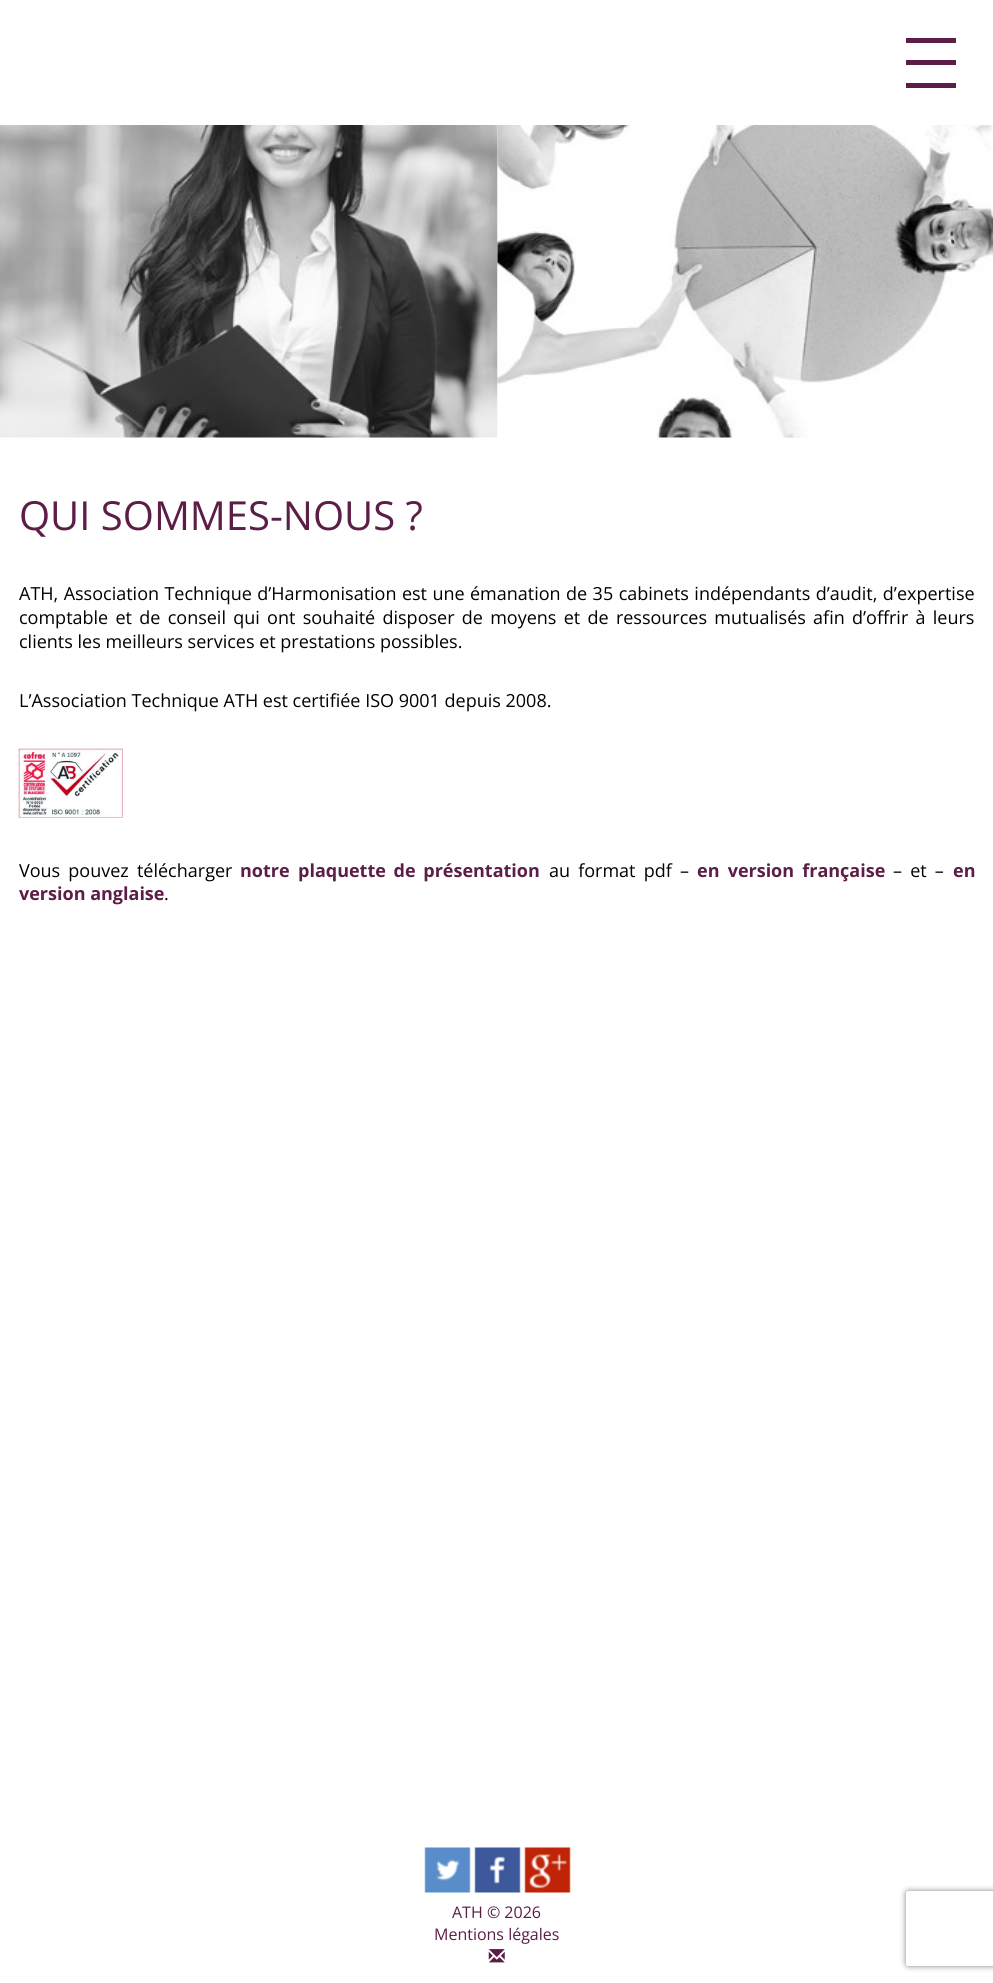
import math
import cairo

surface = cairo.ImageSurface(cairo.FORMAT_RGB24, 993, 1983)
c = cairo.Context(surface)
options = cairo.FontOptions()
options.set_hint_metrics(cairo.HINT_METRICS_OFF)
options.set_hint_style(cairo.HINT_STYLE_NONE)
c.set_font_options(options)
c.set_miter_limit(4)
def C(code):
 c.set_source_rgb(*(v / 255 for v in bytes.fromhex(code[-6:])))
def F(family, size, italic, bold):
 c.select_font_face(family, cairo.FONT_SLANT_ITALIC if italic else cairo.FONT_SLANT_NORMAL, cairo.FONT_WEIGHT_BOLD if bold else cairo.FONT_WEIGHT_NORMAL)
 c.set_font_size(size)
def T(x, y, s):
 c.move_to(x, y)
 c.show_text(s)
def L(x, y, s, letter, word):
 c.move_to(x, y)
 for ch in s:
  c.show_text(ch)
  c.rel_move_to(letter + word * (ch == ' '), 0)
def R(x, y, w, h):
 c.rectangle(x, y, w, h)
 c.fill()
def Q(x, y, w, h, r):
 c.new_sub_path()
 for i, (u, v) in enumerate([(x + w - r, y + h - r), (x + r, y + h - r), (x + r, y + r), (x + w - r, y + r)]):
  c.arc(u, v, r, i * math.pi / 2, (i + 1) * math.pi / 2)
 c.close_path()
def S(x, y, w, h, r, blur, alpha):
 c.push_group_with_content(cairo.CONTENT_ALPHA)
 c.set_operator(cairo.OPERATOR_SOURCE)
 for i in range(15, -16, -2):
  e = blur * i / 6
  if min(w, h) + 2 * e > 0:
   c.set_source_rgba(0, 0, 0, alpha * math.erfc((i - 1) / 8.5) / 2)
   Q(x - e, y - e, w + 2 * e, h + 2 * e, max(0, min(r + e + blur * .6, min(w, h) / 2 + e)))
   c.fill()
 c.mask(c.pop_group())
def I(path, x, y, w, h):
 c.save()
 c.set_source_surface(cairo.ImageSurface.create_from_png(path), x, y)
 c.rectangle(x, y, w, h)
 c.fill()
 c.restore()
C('ffffff')
c.paint()
C('5c1d46')
R(906,38,50,5)
R(906,60,50,5)
R(906,83,50,5)
I('1.png',0,125,498,313)
I('2.png',497,125,496,313)
F('Open Sans',40,0,0)
T(19,530,'QUI SOMMES-NOUS ?')
F('Open Sans',18,0,0)
C('000000')
L(19,600,'ATH, Association Technique d’Harmonisation est une émanation de 35 cabinets indépendants d’audit, d’expertise',0,.75)
L(19,624,'comptable et de conseil qui ont souhaité disposer de moyens et de ressources mutualisés afin d’offrir à leurs',0,2.6)
T(19,648,'clients les meilleurs services et prestations possibles.')
T(19,707,'L’Association Technique ATH est certifiée ISO 9001 depuis 2008.')
I('3.png',18,748,105,70)
L(19,877,'Vous pouvez télécharger',0,3.5)
F('Open Sans',18,0,1)
C('5c1d46')
T(240,877,'notre')
L(298,877,'plaquette de présentation',0,3)
F('Open Sans',18,0,0)
C('000000')
L(549,877,'au format pdf –',0,3.5)
F('Open Sans',18,0,1)
C('5c1d46')
L(697,877,'en version française',0,3.5)
F('Open Sans',18,0,0)
C('000000')
L(893,877,'– et –',0,3.5)
F('Open Sans',18,0,1)
C('5c1d46')
T(953,877,'en')
T(19,900,'version anglaise')
F('Open Sans',18,0,0)
C('000000')
T(164,900,'.')
I('4.png',424,1847,47,46)
I('5.png',474,1847,47,46)
I('6.png',524,1847,47,46)
F('Open Sans',16,0,0)
C('5c1d46')
T(452,1918,'ATH © 2026')
T(434,1940,'Mentions légales')
I('7.png',488,1949,17,14)
c.save()
c.set_fill_rule(cairo.FILL_RULE_EVEN_ODD)
c.new_path()
c.move_to(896,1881)
c.line_to(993,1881)
c.line_to(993,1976)
c.line_to(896,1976)
c.close_path()
c.move_to(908.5,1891)
c.line_to(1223.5,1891)
c.curve_to(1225,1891,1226,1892,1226,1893.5)
c.line_to(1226,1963.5)
c.curve_to(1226,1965,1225,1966,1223.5,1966)
c.line_to(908.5,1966)
c.curve_to(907,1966,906,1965,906,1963.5)
c.line_to(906,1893.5)
c.curve_to(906,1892,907,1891,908.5,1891)
c.close_path()
c.clip()
C('808080')
S(906,1891,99,75,2.5,3,1)
c.restore()
surface.write_to_png('o.png')
